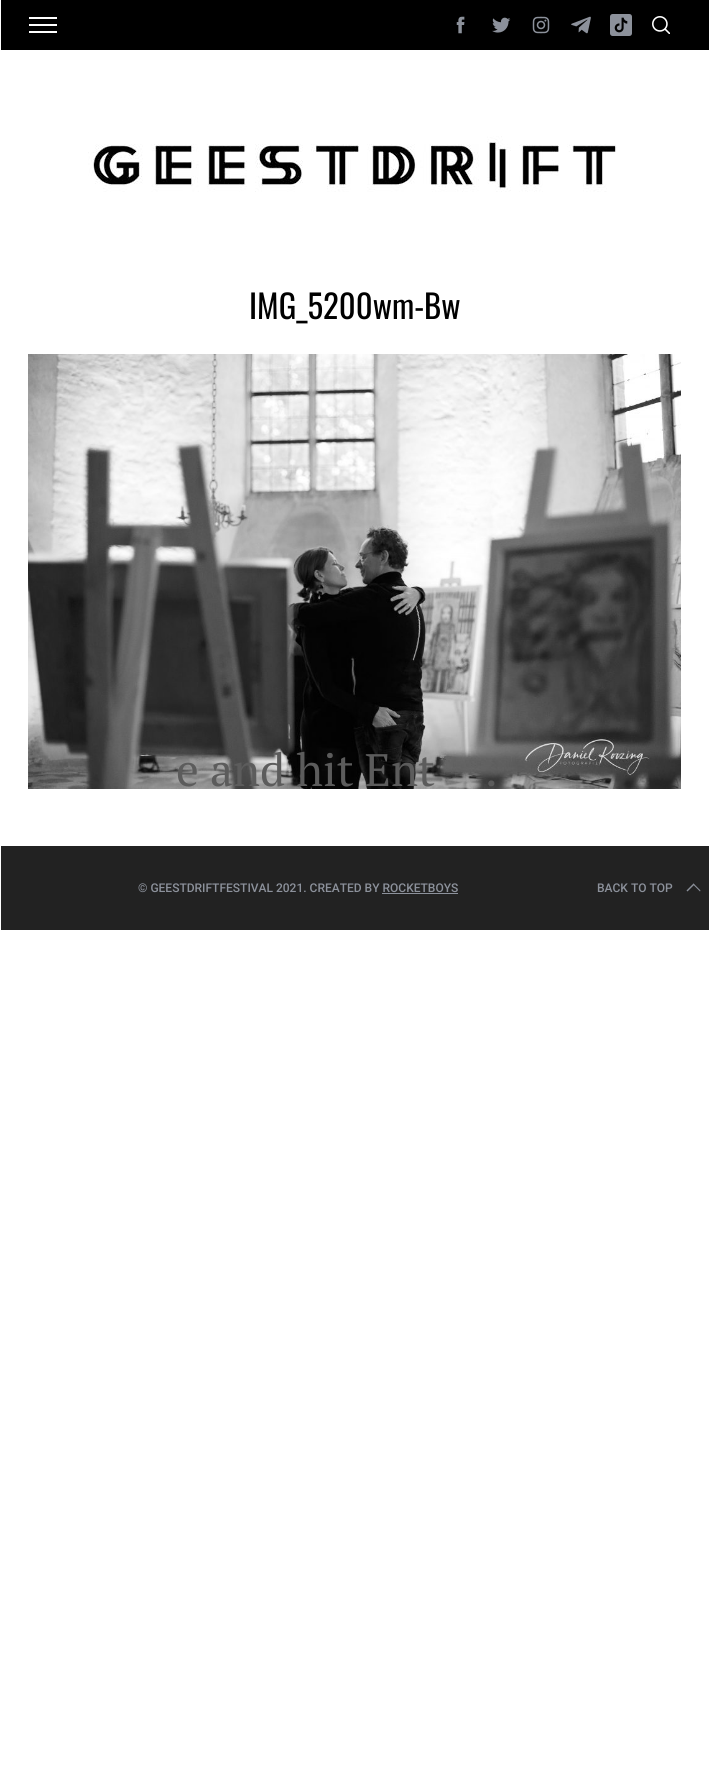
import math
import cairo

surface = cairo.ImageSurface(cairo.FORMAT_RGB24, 709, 1769)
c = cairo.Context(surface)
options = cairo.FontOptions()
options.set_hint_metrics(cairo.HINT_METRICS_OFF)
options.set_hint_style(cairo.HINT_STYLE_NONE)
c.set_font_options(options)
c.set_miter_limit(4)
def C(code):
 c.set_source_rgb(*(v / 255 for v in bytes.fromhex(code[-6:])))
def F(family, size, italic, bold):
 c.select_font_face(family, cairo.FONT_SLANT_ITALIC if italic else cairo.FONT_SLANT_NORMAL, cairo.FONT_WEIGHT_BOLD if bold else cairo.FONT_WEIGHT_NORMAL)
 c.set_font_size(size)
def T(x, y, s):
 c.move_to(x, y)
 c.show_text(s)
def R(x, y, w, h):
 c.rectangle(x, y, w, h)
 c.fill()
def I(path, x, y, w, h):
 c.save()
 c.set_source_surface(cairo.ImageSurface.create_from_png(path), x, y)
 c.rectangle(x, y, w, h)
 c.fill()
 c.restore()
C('ffffff')
c.paint()
C('000000')
R(1,0,708,50)
C('ffffff')
R(29,24,28,2)
R(29,17,28,2)
R(29,31,28,2)
I('1.png',456,16,9,18)
I('2.png',492,17,19,16)
I('3.png',532,16,18,18)
I('4.png',571,16,20,18)
I('5.png',610,14,22,22)
I('6.png',652,16,18,18)
I('7.png',88,136,529,56)
F('Oswald',32.75,0,0)
C('000000')
T(249,319,'IMG_5200wm-Bw')
I('8.png',28,354,653,435)
F('PT Serif',45.5,0,0)
C('5c5c5c')
T(176,786,'e and hit Ent')
T(485,786,'.')
C('222222')
R(1,846,708,84)
F('Roboto Medium',12,0,0)
C('8c919b')
T(138,892,'© GEESTDRIFTFESTIVAL 2021. CREATED BY ROCKETBOYS')
R(382,893,76,1)
T(597,892,'BACK TO TOP')
c.new_path()
c.move_to(686.5,890.5)
c.line_to(693.5,883.5)
c.line_to(694.5,884.5)
c.line_to(687.5,891.5)
c.close_path()
c.fill()
c.new_path()
c.move_to(693,884.5)
c.line_to(693.5,883.5)
c.line_to(700.5,890.5)
c.line_to(700,891.5)
c.close_path()
c.fill()
surface.write_to_png('o.png')
